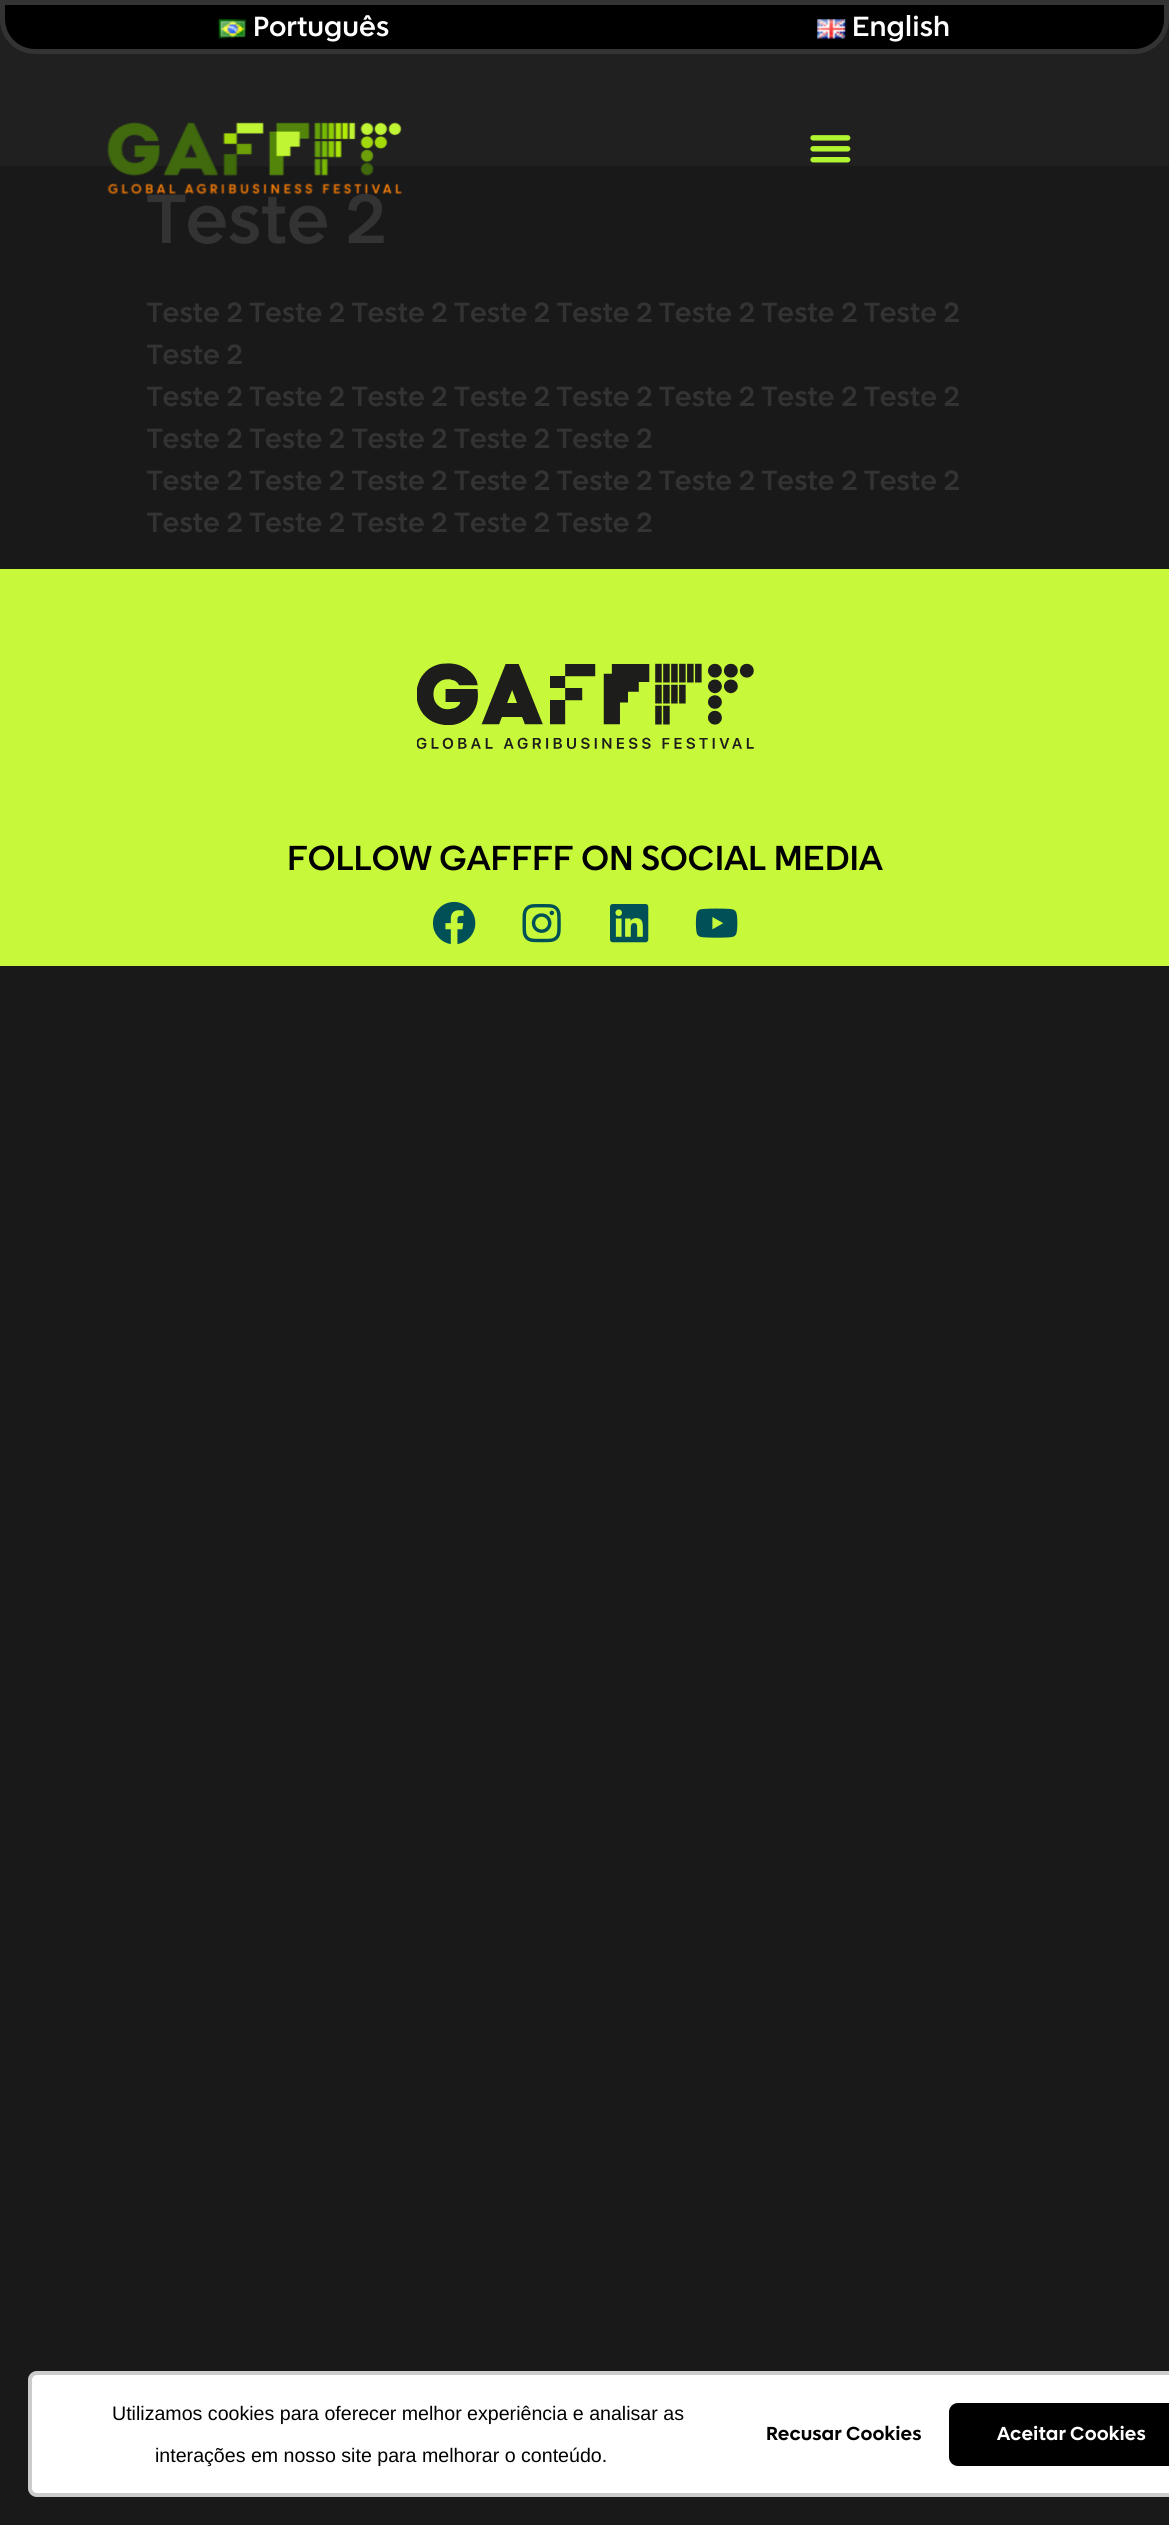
import math
import cairo

surface = cairo.ImageSurface(cairo.FORMAT_RGB24, 1169, 2525)
c = cairo.Context(surface)
options = cairo.FontOptions()
options.set_hint_metrics(cairo.HINT_METRICS_OFF)
options.set_hint_style(cairo.HINT_STYLE_NONE)
c.set_font_options(options)
c.set_miter_limit(4)
def C(code):
 c.set_source_rgb(*(v / 255 for v in bytes.fromhex(code[-6:])))
def F(family, size, italic, bold):
 c.select_font_face(family, cairo.FONT_SLANT_ITALIC if italic else cairo.FONT_SLANT_NORMAL, cairo.FONT_WEIGHT_BOLD if bold else cairo.FONT_WEIGHT_NORMAL)
 c.set_font_size(size)
def T(x, y, s):
 c.move_to(x, y)
 c.show_text(s)
def R(x, y, w, h):
 c.rectangle(x, y, w, h)
 c.fill()
def Q(x, y, w, h, r):
 c.new_sub_path()
 for i, (u, v) in enumerate([(x + w - r, y + h - r), (x + r, y + h - r), (x + r, y + r), (x + w - r, y + r)]):
  c.arc(u, v, r, i * math.pi / 2, (i + 1) * math.pi / 2)
 c.close_path()
def I(path, x, y, w, h):
 c.save()
 c.set_source_surface(cairo.ImageSurface.create_from_png(path), x, y)
 c.rectangle(x, y, w, h)
 c.fill()
 c.restore()
C('191919')
c.paint()
C('202020')
R(0,19,1169,147)
C('000000')
c.new_path()
c.move_to(2.5,2.5)
c.line_to(1166.5,2.5)
c.line_to(1166.5,19)
c.curve_to(1166.5,37,1152,51.5,1134,51.5)
c.line_to(35,51.5)
c.curve_to(17,51.5,2.5,37,2.5,19)
c.close_path()
c.fill_preserve()
C('333333')
c.set_line_width(5)
c.stroke()
I('1.png',218,19,29,20)
F('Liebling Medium',28,0,0)
C('ffffff')
T(253,36,'Português')
I('2.png',817,19,29,20)
T(852,36,'English')
F('Liebling Medium',70,0,0)
C('333333')
T(147,243,'Teste 2')
I('3.png',107,122,296,73)
I('4.png',810,135,41,28)
F('Liebling Medium',28,0,0)
T(147,322,'Teste 2 Teste 2 Teste 2 Teste 2 Teste 2 Teste 2 Teste 2 Teste 2')
T(147,364,'Teste 2')
T(147,406,'Teste 2 Teste 2 Teste 2 Teste 2 Teste 2 Teste 2 Teste 2 Teste 2')
T(147,448,'Teste 2 Teste 2 Teste 2 Teste 2 Teste 2')
T(147,490,'Teste 2 Teste 2 Teste 2 Teste 2 Teste 2 Teste 2 Teste 2 Teste 2')
T(147,532,'Teste 2 Teste 2 Teste 2 Teste 2 Teste 2')
C('c7f83a')
R(0,569,1169,397)
I('5.png',417,663,337,86)
F('Liebling Medium',35,0,0)
C('000000')
T(287,870,'FOLLOW GAFFFF ON SOCIAL MEDIA')
I('6.png',432,901,44,43)
I('7.png',522,904,39,39)
I('8.png',610,904,39,39)
I('9.png',695,908,43,30)
C('ffffff')
Q(28,2371,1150,126,9)
c.fill()
Q(30,2373,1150,122,7)
c.set_source_rgba(0,0,0,0.2)
c.set_line_width(4)
c.stroke()
F('Liberation Sans',19.6,0,0)
C('000000')
T(112,2420,'Utilizamos cookies para oferecer melhor experiência e analisar as')
T(155,2462,'interações em nosso site para melhorar o conteúdo.')
F('Liebling',19,0,1)
T(766,2440,'Recusar Cookies')
Q(949,2403,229,63,9)
c.fill()
C('ffffff')
T(997,2440,'Aceitar Cookies')
surface.write_to_png('o.png')
